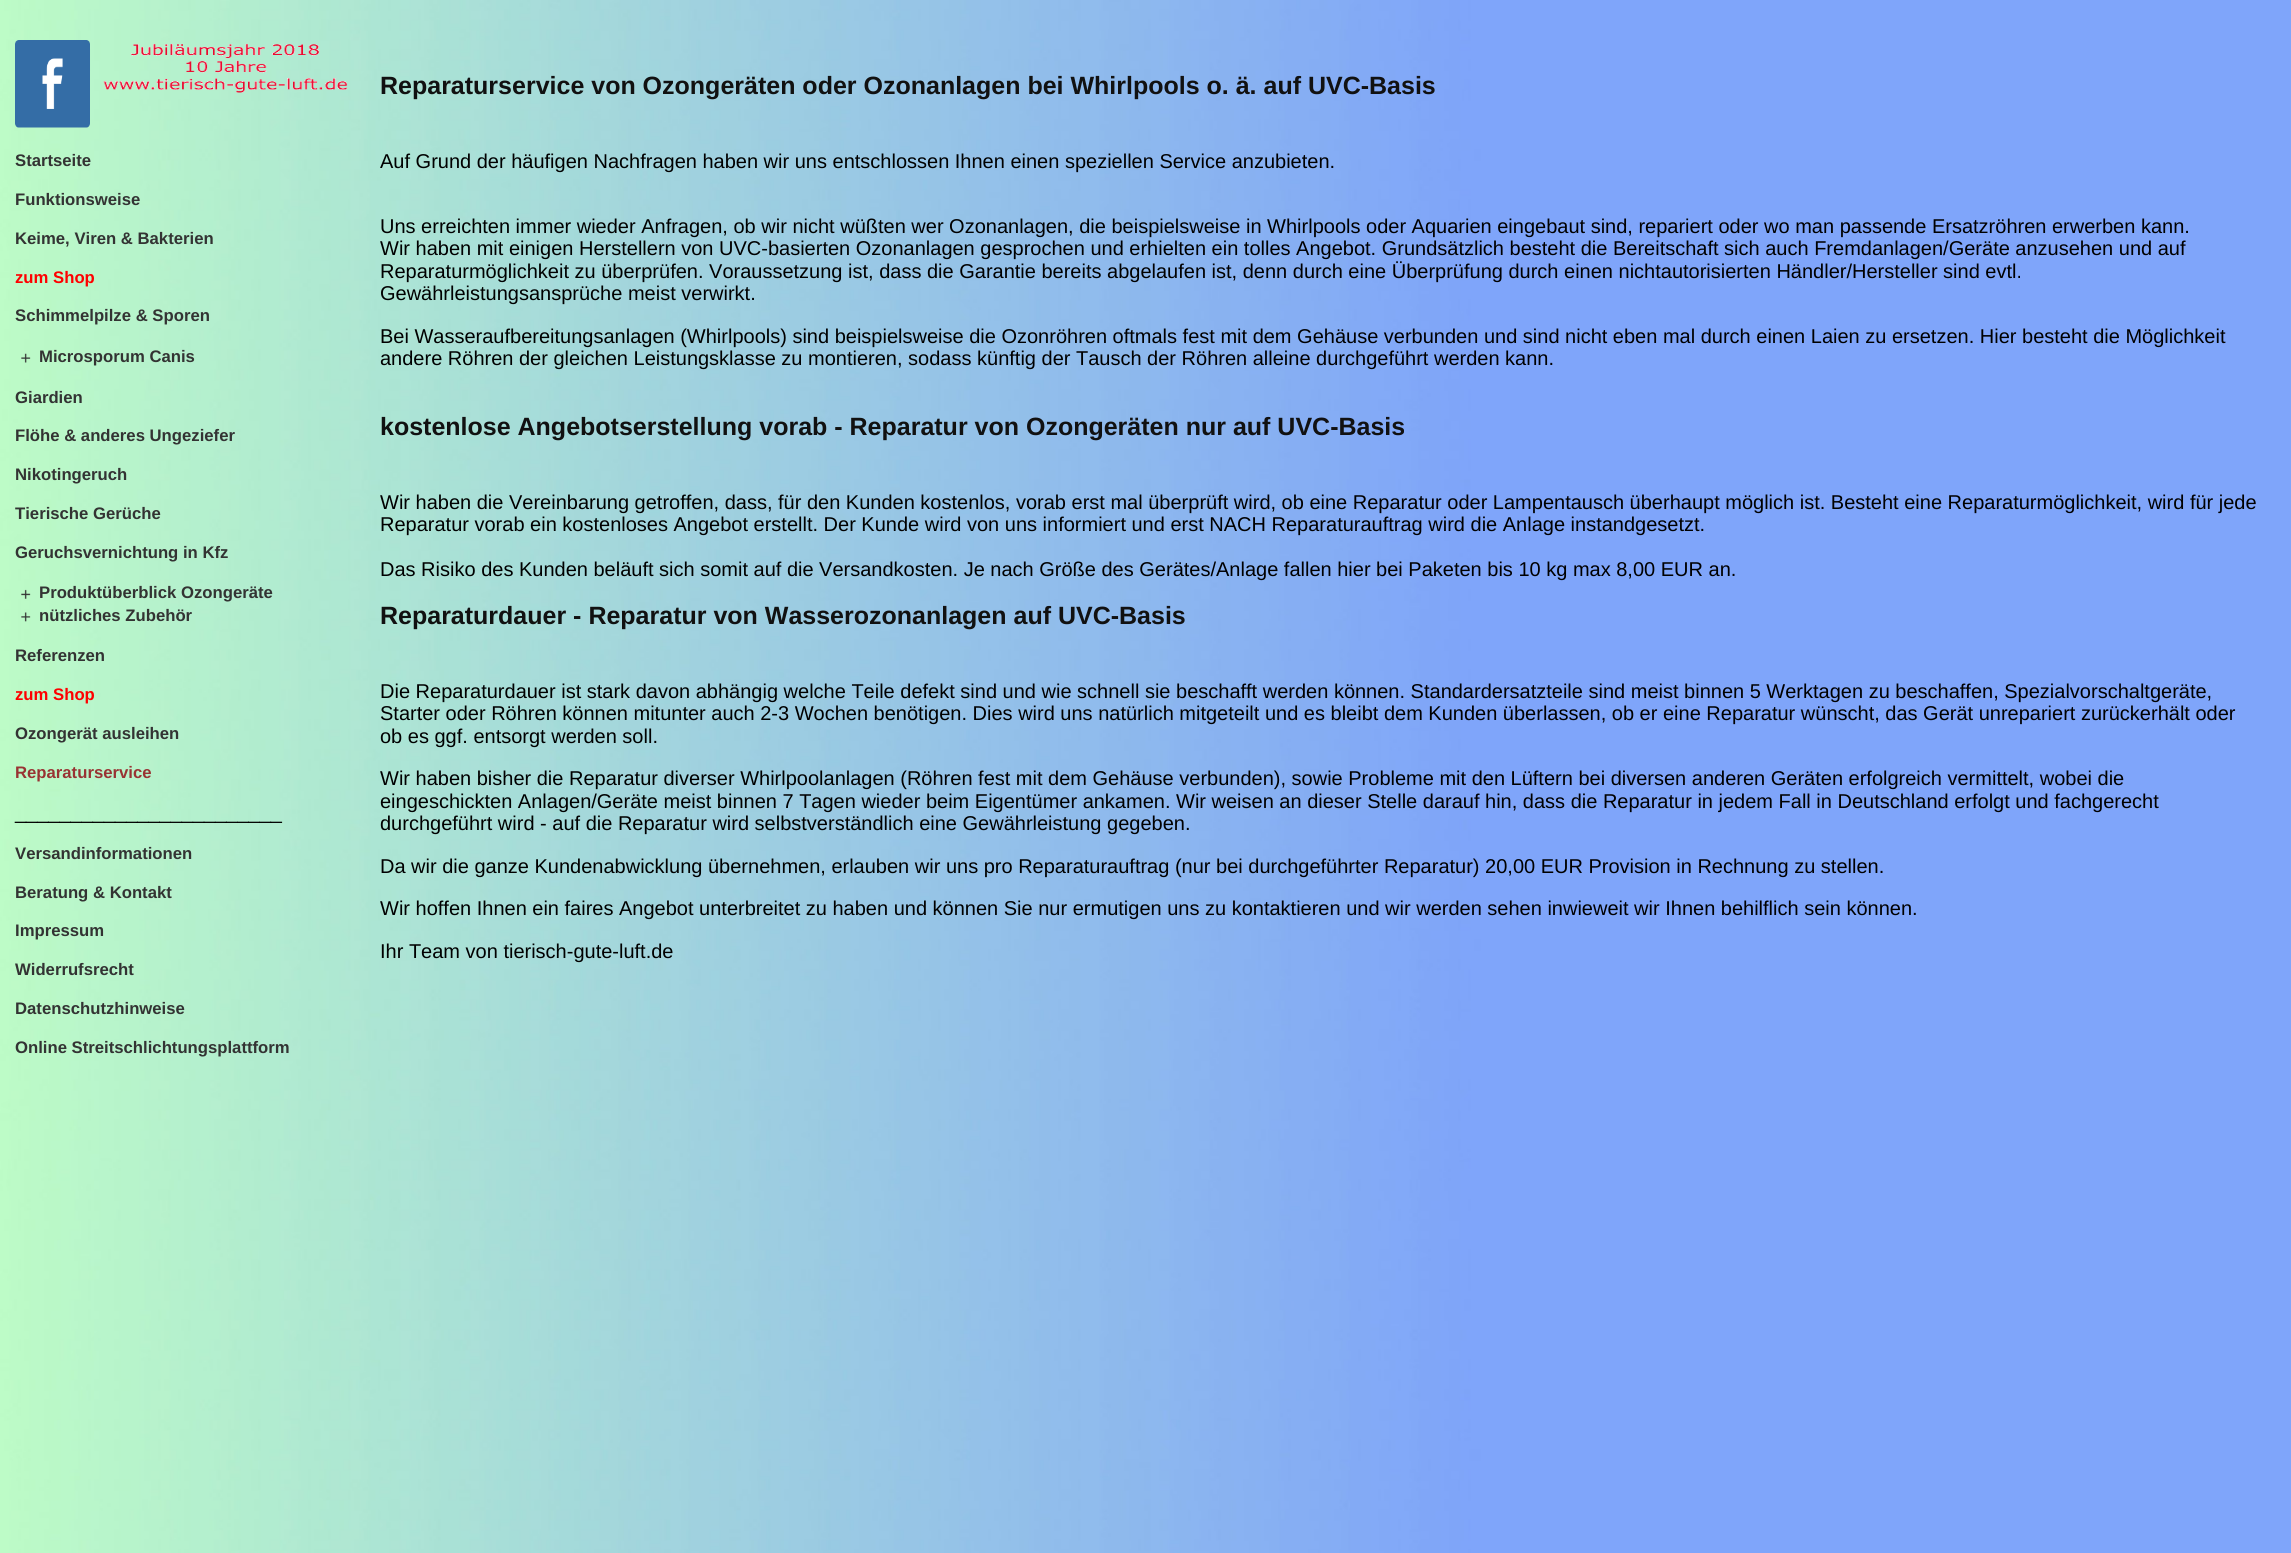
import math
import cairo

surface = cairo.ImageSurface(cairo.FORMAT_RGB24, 2291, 1553)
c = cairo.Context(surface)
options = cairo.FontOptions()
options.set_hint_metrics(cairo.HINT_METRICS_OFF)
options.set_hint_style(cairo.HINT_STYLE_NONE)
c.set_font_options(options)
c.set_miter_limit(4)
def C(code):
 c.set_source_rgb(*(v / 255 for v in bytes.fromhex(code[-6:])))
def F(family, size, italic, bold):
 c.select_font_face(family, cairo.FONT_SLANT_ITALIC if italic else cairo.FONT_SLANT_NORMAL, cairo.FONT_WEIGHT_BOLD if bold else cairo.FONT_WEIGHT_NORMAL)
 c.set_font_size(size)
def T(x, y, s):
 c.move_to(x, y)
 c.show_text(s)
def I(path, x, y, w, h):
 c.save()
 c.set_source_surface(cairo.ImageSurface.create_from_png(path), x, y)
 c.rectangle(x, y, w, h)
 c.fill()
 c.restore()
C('ffffff')
c.paint()
I('1.png',0,0,2291,1553)
I('2.png',15,40,75,88)
I('3.png',103,43,245,50)
F('Liberation Sans',16.7,0,1)
C('333333')
T(15,166,'Startseite')
T(15,205,'Funktionsweise')
T(15,244,'Keime, Viren & Bakterien')
C('ff0000')
T(15,283,'zum Shop')
C('333333')
T(15,321,'Schimmelpilze & Sporen')
I('4.png',21,353,10,10)
T(39,362,'Microsporum Canis')
T(15,403,'Giardien')
T(15,441,'Flöhe & anderes Ungeziefer')
T(15,480,'Nikotingeruch')
T(15,519,'Tierische Gerüche')
T(15,558,'Geruchsvernichtung in Kfz')
I('5.png',21,589,10,10)
T(39,598,'Produktüberblick Ozongeräte')
I('6.png',21,612,10,10)
T(39,621,'nützliches Zubehör')
T(15,661,'Referenzen')
C('ff0000')
T(15,700,'zum Shop')
C('333333')
T(15,739,'Ozongerät ausleihen')
C('993333')
T(15,778,'Reparaturservice')
F('Liberation Sans',20,0,0)
C('000000')
T(15,819,'________________________')
F('Liberation Sans',16.7,0,1)
C('333333')
T(15,859,'Versandinformationen')
T(15,898,'Beratung & Kontakt')
T(15,936,'Impressum')
T(15,975,'Widerrufsrecht')
T(15,1014,'Datenschutzhinweise')
T(15,1053,'Online Streitschlichtungsplattform')
F('Liberation Sans',25,0,1)
C('111111')
T(380,94,'Reparaturservice von Ozongeräten oder Ozonanlagen bei Whirlpools o. ä. auf UVC-Basis')
F('Liberation Sans',20,0,0)
C('000000')
T(380,168,'Auf Grund der häufigen Nachfragen haben wir uns entschlossen Ihnen einen speziellen Service anzubieten.')
T(380,233,'Uns erreichten immer wieder Anfragen, ob wir nicht wüßten wer Ozonanlagen, die beispielsweise in Whirlpools oder Aquarien eingebaut sind, repariert oder wo man passende Ersatzröhren erwerben kann.')
T(380,255,'Wir haben mit einigen Herstellern von UVC-basierten Ozonanlagen gesprochen und erhielten ein tolles Angebot. Grundsätzlich besteht die Bereitschaft sich auch Fremdanlagen/Geräte anzusehen und auf')
T(380,278,'Reparaturmöglichkeit zu überprüfen. Voraussetzung ist, dass die Garantie bereits abgelaufen ist, denn durch eine Überprüfung durch einen nichtautorisierten Händler/Hersteller sind evtl.')
T(380,300,'Gewährleistungsansprüche meist verwirkt.')
T(380,343,'Bei Wasseraufbereitungsanlagen (Whirlpools) sind beispielsweise die Ozonröhren oftmals fest mit dem Gehäuse verbunden und sind nicht eben mal durch einen Laien zu ersetzen. Hier besteht die Möglichkeit')
T(380,365,'andere Röhren der gleichen Leistungsklasse zu montieren, sodass künftig der Tausch der Röhren alleine durchgeführt werden kann.')
F('Liberation Sans',25,0,1)
C('111111')
T(380,435,'kostenlose Angebotserstellung vorab - Reparatur von Ozongeräten nur auf UVC-Basis')
F('Liberation Sans',20,0,0)
C('000000')
T(380,509,'Wir haben die Vereinbarung getroffen, dass, für den Kunden kostenlos, vorab erst mal überprüft wird, ob eine Reparatur oder Lampentausch überhaupt möglich ist. Besteht eine Reparaturmöglichkeit, wird für jede')
T(380,531,'Reparatur vorab ein kostenloses Angebot erstellt. Der Kunde wird von uns informiert und erst NACH Reparaturauftrag wird die Anlage instandgesetzt.')
T(380,576,'Das Risiko des Kunden beläuft sich somit auf die Versandkosten. Je nach Größe des Gerätes/Anlage fallen hier bei Paketen bis 10 kg max 8,00 EUR an.')
F('Liberation Sans',25,0,1)
C('111111')
T(380,624,'Reparaturdauer - Reparatur von Wasserozonanlagen auf UVC-Basis')
F('Liberation Sans',20,0,0)
C('000000')
T(380,698,'Die Reparaturdauer ist stark davon abhängig welche Teile defekt sind und wie schnell sie beschafft werden können. Standardersatzteile sind meist binnen 5 Werktagen zu beschaffen, Spezialvorschaltgeräte,')
T(380,720,'Starter oder Röhren können mitunter auch 2-3 Wochen benötigen. Dies wird uns natürlich mitgeteilt und es bleibt dem Kunden überlassen, ob er eine Reparatur wünscht, das Gerät unrepariert zurückerhält oder')
T(380,743,'ob es ggf. entsorgt werden soll.')
T(380,785,'Wir haben bisher die Reparatur diverser Whirlpoolanlagen (Röhren fest mit dem Gehäuse verbunden), sowie Probleme mit den Lüftern bei diversen anderen Geräten erfolgreich vermittelt, wobei die')
T(380,808,'eingeschickten Anlagen/Geräte meist binnen 7 Tagen wieder beim Eigentümer ankamen. Wir weisen an dieser Stelle darauf hin, dass die Reparatur in jedem Fall in Deutschland erfolgt und fachgerecht')
T(380,830,'durchgeführt wird - auf die Reparatur wird selbstverständlich eine Gewährleistung gegeben.')
T(380,873,'Da wir die ganze Kundenabwicklung übernehmen, erlauben wir uns pro Reparaturauftrag (nur bei durchgeführter Reparatur) 20,00 EUR Provision in Rechnung zu stellen.')
T(380,915,'Wir hoffen Ihnen ein faires Angebot unterbreitet zu haben und können Sie nur ermutigen uns zu kontaktieren und wir werden sehen inwieweit wir Ihnen behilflich sein können.')
T(380,958,'Ihr Team von tierisch-gute-luft.de')
surface.write_to_png('o.png')
